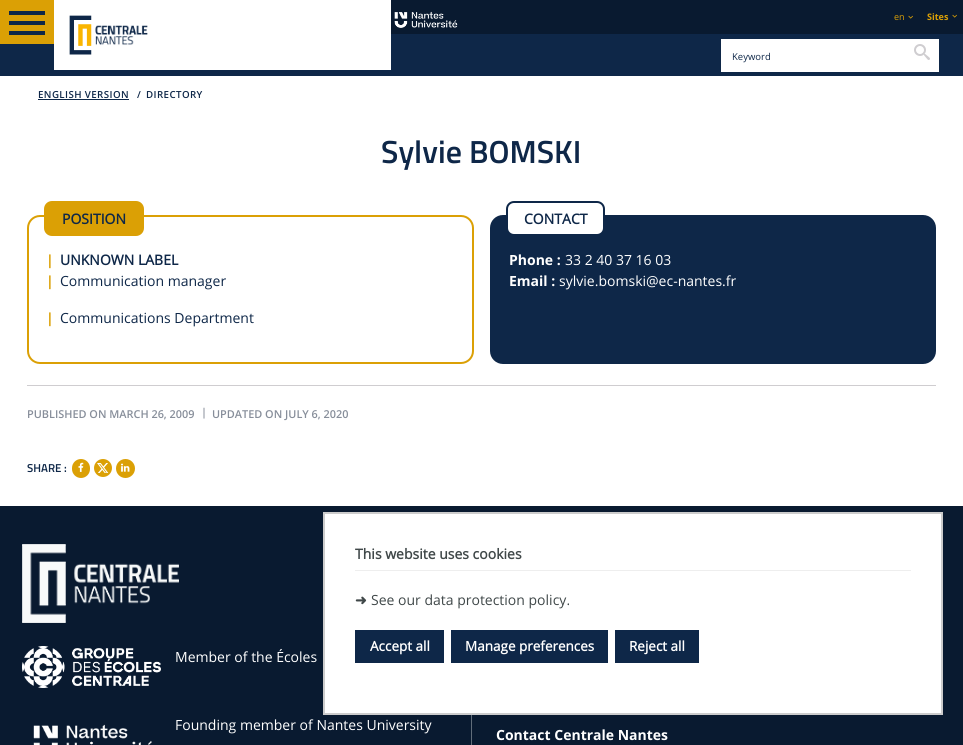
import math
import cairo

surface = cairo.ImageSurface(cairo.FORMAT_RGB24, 963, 745)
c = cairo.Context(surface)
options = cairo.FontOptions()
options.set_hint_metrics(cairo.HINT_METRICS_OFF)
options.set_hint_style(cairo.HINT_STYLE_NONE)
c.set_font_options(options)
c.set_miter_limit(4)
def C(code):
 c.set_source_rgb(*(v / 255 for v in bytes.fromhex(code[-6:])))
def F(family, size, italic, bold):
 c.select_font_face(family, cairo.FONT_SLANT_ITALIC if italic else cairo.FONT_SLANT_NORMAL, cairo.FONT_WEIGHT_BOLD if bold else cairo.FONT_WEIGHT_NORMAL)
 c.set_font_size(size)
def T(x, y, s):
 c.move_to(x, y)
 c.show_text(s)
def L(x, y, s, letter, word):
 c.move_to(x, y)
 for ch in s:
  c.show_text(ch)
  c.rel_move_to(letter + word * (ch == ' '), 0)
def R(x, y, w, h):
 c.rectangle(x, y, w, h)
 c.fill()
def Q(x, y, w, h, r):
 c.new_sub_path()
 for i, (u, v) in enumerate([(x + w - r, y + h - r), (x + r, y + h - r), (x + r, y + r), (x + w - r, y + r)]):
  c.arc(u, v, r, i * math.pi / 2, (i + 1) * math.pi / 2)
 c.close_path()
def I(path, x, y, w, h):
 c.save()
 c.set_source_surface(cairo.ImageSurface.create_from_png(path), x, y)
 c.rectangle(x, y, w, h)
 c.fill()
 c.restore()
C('ffffff')
c.paint()
C('091a30')
R(391,0,572,34)
I('1.png',394,11,64,17)
F('Open Sans',9,0,0)
C('dba005')
T(894,20,'en')
I('2.png',908,15,5,4)
F('Open Sans',9,0,1)
T(927,20,'Sites')
I('2.png',952,14,5,4)
C('0e2748')
R(0,34,963,42)
C('ffffff')
R(54,34,337,36)
I('3.png',69,15,79,40)
C('dba005')
R(0,0,54,44)
C('0e2748')
c.new_path()
c.move_to(9,11)
c.line_to(45,11)
c.line_to(45,15)
c.line_to(9,15)
c.close_path()
c.move_to(9,25)
c.line_to(9,21)
c.line_to(45,21)
c.line_to(45,25)
c.close_path()
c.move_to(9,35)
c.line_to(9,31)
c.line_to(45,31)
c.line_to(45,35)
c.close_path()
c.fill()
C('ffffff')
R(721,39,218,33)
F('Open Sans',9.5,0,0)
C('0e2748')
T(732,60,'Keyword')
I('4.png',914,44,16,16)
F('Open Sans SemiBold',9.75,0,0)
L(38,98,'ENGLISH VERSION',.4,0)
R(38,99,91,1)
L(137,98,'/',.4,0)
L(146,98,'DIRECTORY',.4,0)
F('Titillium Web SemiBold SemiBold',32,0,0)
T(381,163,'Sylvie BOMSKI')
Q(28,216,445,147,12)
C('dba005')
c.stroke()
Q(45,202,98,33,7)
c.fill_preserve()
c.stroke()
F('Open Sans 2',14,0,1)
C('0e2748')
T(62,224,'POSITION')
F('Open Sans',14,0,1)
C('dba005')
T(46,265,'|')
F('Open Sans 2',14,0,1)
C('0e2748')
T(60,265,'UNKNOWN LABEL')
F('Open Sans',14,0,1)
C('dba005')
T(46,286,'|')
F('Open Sans',14,0,0)
C('0e2748')
T(60,286,'Communication manager')
F('Open Sans',14,0,1)
C('dba005')
T(46,323,'|')
F('Open Sans',14,0,0)
C('0e2748')
T(60,323,'Communications Department')
Q(491,216,444,147,12)
c.fill_preserve()
c.stroke()
C('ffffff')
Q(507,202,97,33,7)
c.fill_preserve()
C('0e2748')
c.stroke()
F('Open Sans 2',14,0,1)
T(524,224,'CONTACT')
F('Open Sans',14,0,1)
C('ffffff')
T(509,265,'Phone :')
F('Open Sans',14,0,0)
T(565,265,'33 2 40 37 16 03')
F('Open Sans',14,0,1)
T(509,286,'Email :')
F('Open Sans',14,0,0)
T(559,286,'sylvie.bomski@ec-nantes.fr')
C('cfcdd0')
R(27,385,909,1)
F('Open Sans SemiBold',10.9,0,0)
C('878e9a')
T(27,418,'PUBLISHED ON MARCH 26, 2009')
T(201,416,'|')
T(212,418,'UPDATED ON JULY 6, 2020')
F('Titillium Web SemiBold SemiBold',11.5,0,0)
C('0e2748')
T(27,472,'SHARE :')
C('dba005')
Q(72,459,18,19,9)
c.fill()
I('5.png',78,462,6,10)
c.arc(103,468,9,0,2 * math.pi)
c.fill()
I('6.png',97,463,12,10)
c.arc(125.5,468.5,9.5,0,2 * math.pi)
c.fill()
I('7.png',121,463,9,9)
C('091a30')
R(0,506,963,239)
C('ffffff')
c.rectangle(324,513,618,201)
c.fill_preserve()
C('cccccc')
c.stroke()
C('eeeeee')
R(355,570,556,1)
F('Open Sans 2',14,0,1)
C('404849')
T(355,559,'This website uses cookies')
F('DejaVu Sans',14,0,1)
T(355,605,'➜')
F('Open Sans',14,0,0)
T(371,605,'See our data protection policy.')
C('0e2748')
R(355,630,89,33)
F('Open Sans 2',13.5,0,1)
C('ffffff')
T(370,651,'Accept all')
C('0e2748')
R(451,630,157,33)
C('ffffff')
T(465,651,'Manage preferences')
C('0e2748')
R(615,630,84,33)
C('ffffff')
T(629,651,'Reject all')
I('8.png',22,544,157,79)
I('9.png',22,646,139,42)
F('Open Sans',14,0,0)
T(175,662,'Member of the Écoles')
I('10.png',33,724,119,21)
T(175,730,'Founding member of Nantes University')
C('616d7a')
R(471,715,1,30)
F('Open Sans',14,0,1)
C('ffffff')
T(496,740,'Contact Centrale Nantes')
surface.write_to_png('o.png')
